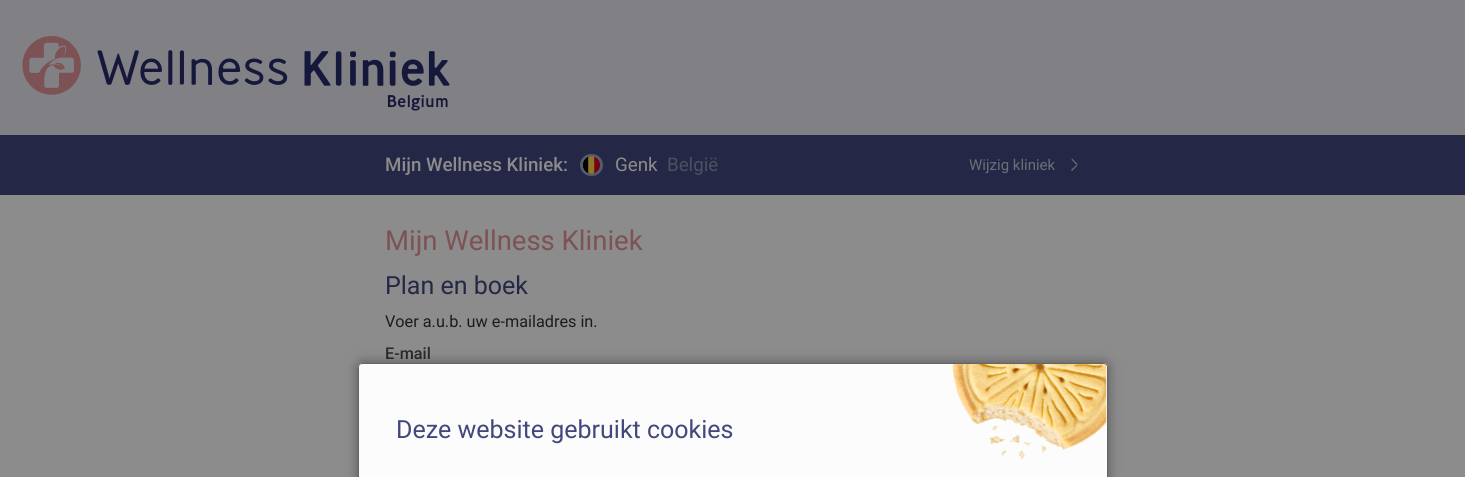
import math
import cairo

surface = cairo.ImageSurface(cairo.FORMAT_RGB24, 1465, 477)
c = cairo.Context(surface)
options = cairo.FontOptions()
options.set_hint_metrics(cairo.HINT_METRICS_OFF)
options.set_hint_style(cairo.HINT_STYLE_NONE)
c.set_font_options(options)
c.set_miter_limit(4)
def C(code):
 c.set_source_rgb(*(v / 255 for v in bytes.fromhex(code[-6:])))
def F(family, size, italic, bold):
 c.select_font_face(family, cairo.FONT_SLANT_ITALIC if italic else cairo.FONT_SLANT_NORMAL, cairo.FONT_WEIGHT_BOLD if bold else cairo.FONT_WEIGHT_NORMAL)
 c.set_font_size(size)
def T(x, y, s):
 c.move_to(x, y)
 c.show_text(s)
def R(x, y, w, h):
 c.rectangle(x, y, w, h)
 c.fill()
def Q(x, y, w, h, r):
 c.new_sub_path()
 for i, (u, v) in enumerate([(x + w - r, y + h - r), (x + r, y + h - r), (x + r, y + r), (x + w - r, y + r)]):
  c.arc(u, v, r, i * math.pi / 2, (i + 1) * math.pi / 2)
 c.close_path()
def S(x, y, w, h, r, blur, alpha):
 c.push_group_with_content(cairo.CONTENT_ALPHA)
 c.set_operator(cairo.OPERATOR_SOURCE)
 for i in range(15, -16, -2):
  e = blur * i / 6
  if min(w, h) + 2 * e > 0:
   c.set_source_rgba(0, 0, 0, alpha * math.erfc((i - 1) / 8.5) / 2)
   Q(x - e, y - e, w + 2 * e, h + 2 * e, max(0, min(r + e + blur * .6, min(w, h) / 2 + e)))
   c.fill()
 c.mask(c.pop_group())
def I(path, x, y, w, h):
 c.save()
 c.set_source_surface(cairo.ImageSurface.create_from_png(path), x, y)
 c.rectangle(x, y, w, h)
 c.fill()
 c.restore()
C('808085')
c.paint()
I('1.png',22,36,428,75)
C('8c8c8c')
R(0,195,1465,282)
C('242745')
R(0,135,1465,60)
F('Roboto Medium',18.75,0,0)
C('8c8c8c')
T(385,171,'Mijn Wellness Kliniek:')
Q(581.5,155.5,20,19,9.5)
C('595a69')
c.set_line_width(3)
c.stroke()
I('2.png',583,156,17,18)
F('Roboto',18.75,0,0)
C('8c8c8c')
T(615,171,'Genk')
C('4e5061')
T(667,171,'België')
F('Roboto',15,0,0)
C('6d6e77')
T(969,170,'Wijzig kliniek')
c.new_path()
c.move_to(1072,158.5)
c.line_to(1077.5,164)
c.line_to(1076.5,165)
c.line_to(1071.5,159.5)
c.close_path()
c.move_to(1076.5,165)
c.line_to(1077.5,165.5)
c.line_to(1072,171)
c.line_to(1071,170)
c.close_path()
c.fill()
F('Roboto',27.5,0,0)
C('7c5255')
T(385,250,'Mijn Wellness Kliniek')
F('Roboto',25,0,0)
C('242745')
T(385,294,'Plan en boek')
F('Roboto',16.25,0,0)
C('1c1c1c')
T(385,327,'Voer a.u.b. uw e-mailadres in.')
F('Roboto Medium',16.25,0,0)
C('2a2a2a')
T(385,359,'E-mail')
C('000000')
S(358,363,750,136,4,6,.4)
C('fcfcfc')
Q(358,363,750,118,4)
c.fill()
I('3.png',952,363,155,97)
Q(358.5,363.5,749,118,3.5)
C('666666')
c.set_line_width(1)
c.stroke()
F('Roboto',25,0,0)
C('42477d')
T(396,438,'Deze website gebruikt cookies')
surface.write_to_png('o.png')
